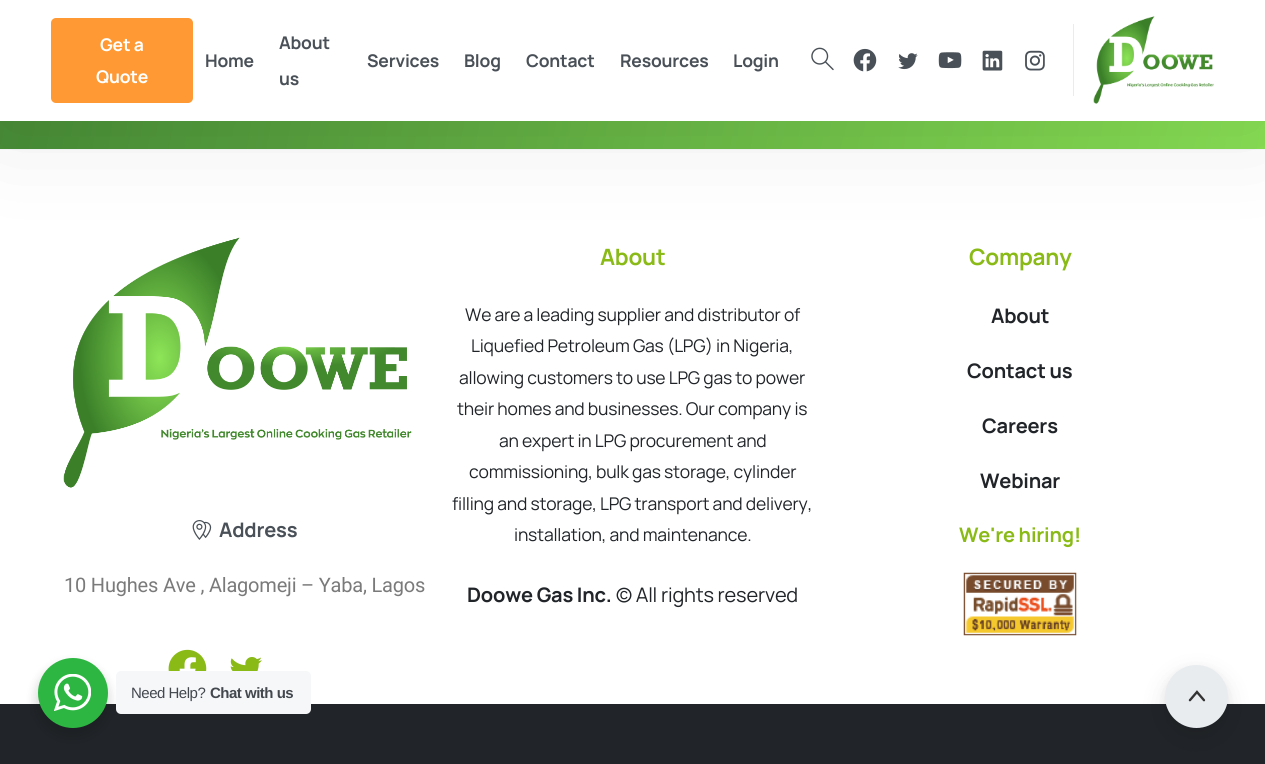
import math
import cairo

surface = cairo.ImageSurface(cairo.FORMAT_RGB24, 1265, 764)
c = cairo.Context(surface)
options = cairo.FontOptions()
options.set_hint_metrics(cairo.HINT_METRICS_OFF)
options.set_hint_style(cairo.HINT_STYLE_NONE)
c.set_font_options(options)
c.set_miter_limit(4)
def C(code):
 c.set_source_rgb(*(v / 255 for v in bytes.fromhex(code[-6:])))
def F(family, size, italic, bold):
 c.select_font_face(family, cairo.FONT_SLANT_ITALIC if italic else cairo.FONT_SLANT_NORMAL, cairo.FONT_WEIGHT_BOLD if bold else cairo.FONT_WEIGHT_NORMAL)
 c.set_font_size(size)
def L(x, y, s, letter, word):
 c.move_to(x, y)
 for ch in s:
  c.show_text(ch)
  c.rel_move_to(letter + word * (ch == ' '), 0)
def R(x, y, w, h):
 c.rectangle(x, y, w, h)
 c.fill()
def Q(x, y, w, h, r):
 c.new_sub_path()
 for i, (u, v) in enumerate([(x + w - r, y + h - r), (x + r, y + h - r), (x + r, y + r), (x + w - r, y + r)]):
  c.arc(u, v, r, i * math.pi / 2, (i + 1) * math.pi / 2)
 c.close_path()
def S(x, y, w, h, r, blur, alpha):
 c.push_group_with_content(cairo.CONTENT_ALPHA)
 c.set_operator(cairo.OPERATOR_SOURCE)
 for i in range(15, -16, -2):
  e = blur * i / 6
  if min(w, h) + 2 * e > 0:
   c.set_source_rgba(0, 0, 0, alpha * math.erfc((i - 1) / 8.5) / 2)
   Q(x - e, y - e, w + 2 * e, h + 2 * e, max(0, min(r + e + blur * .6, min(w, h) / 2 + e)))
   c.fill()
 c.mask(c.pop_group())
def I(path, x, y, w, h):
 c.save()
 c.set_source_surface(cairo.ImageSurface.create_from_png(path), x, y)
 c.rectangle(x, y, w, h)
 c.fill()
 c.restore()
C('ffffff')
c.paint()
gradient = cairo.LinearGradient(8,-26,1257,194)
gradient.add_color_stop_rgba(0,0.278,0.545,0.212,1)
gradient.add_color_stop_rgba(1,0.533,0.875,0.329,1)
c.set_source(gradient)
R(0,121,1265,28)
C('f8f9fa')
R(0,149,1265,1)
I('9.png',63,237,349,251)
C('000000')
S(0,6,1265,122,0,50,.1)
C('ffffff')
R(0,0,1265,121)
C('ff9933')
Q(51,18,142,85,5)
c.fill()
F('Manrope',17.5,0,1)
C('ffffff')
L(100,51,'Get a',-.2,0)
L(96,83,'Quote',-.2,0)
C('495057')
L(205,67,'Home',-.2,0)
L(279,49,'About',-.2,0)
L(279,85,'us',-.2,0)
L(367,67,'Services',-.2,0)
L(464,67,'Blog',-.2,0)
L(526,67,'Contact',-.2,0)
L(620,67,'Resources',-.2,0)
L(733,67,'Login',-.2,0)
I('1.png',811,47,23,24)
I('2.png',853,48,24,24)
I('3.png',898,53,20,17)
I('4.png',938,52,24,17)
I('5.png',982,50,21,21)
I('6.png',1025,50,20,21)
C('e9ecef')
R(1073,24,1,72)
I('7.png',1093,16,121,88)
F('Manrope',22.5,0,1)
C('89ba16')
L(600,265,'About',-.25,0)
F('Manrope',17.5,0,0)
C('212529')
L(465,321,'We are a leading supplier and distributor of',-.2,0)
L(471,352,'Liquefied Petroleum Gas (LPG) in Nigeria,',-.2,0)
L(459,384,'allowing customers to use LPG gas to power',-.2,0)
L(457,415,'their homes and businesses. Our company is',-.2,0)
L(499,447,'an expert in LPG procurement and',-.2,0)
L(469,478,'commissioning, bulk gas storage, cylinder',-.2,0)
L(452,510,'filling and storage, LPG transport and delivery,',-.2,0)
L(514,541,'installation, and maintenance.',-.2,0)
F('Manrope',20,0,1)
L(467,602,'Doowe Gas Inc.',-.2,0)
F('Manrope',20,0,0)
L(616,602,'© All rights reserved',-.2,0)
F('Manrope',22.5,0,1)
C('89ba16')
L(969,265,'Company',-.25,0)
F('Manrope',20,0,1)
C('212529')
L(991,323,'About',-.2,0)
L(967,378,'Contact us',-.2,0)
L(982,433,'Careers',-.2,0)
L(980,488,'Webinar',-.2,0)
C('89ba16')
L(959,542,'We\'re hiring!',-.2,0)
I('8.png',963,572,114,64)
I('10.png',192,520,20,20)
C('495057')
L(219,537,'Address',-.2,0)
F('Roboto',20,0,0)
C('7a7a7a')
L(64,592,'10 Hughes Ave , Alagomeji – Yaba, Lagos',-.2,0)
I('11.png',168,649,39,22)
I('12.png',230,657,32,14)
C('212529')
R(0,704,1265,60)
C('000000')
S(35,663,75,75,37.5,5,.14)
C('2db742')
c.arc(73,693,35,0,2 * math.pi)
c.fill()
I('13.png',54,674,37,37)
C('f5f7f9')
Q(116,671,195,43,5)
c.fill()
F('Liberation Sans',15,0,0)
C('43474e')
L(131,698,'Need Help?',-.5,0)
F('Liberation Sans',15,0,1)
L(210,698,'Chat with us',-.5,0)
C('000000')
S(1165,675,63,63,31.5,12,.1)
S(1165,668,63,62,31,4,.05)
C('e9ecef')
c.arc(1196.5,696.5,31.5,0,2 * math.pi)
c.fill()
I('14.png',1188,690,18,12)
surface.write_to_png('o.png')
